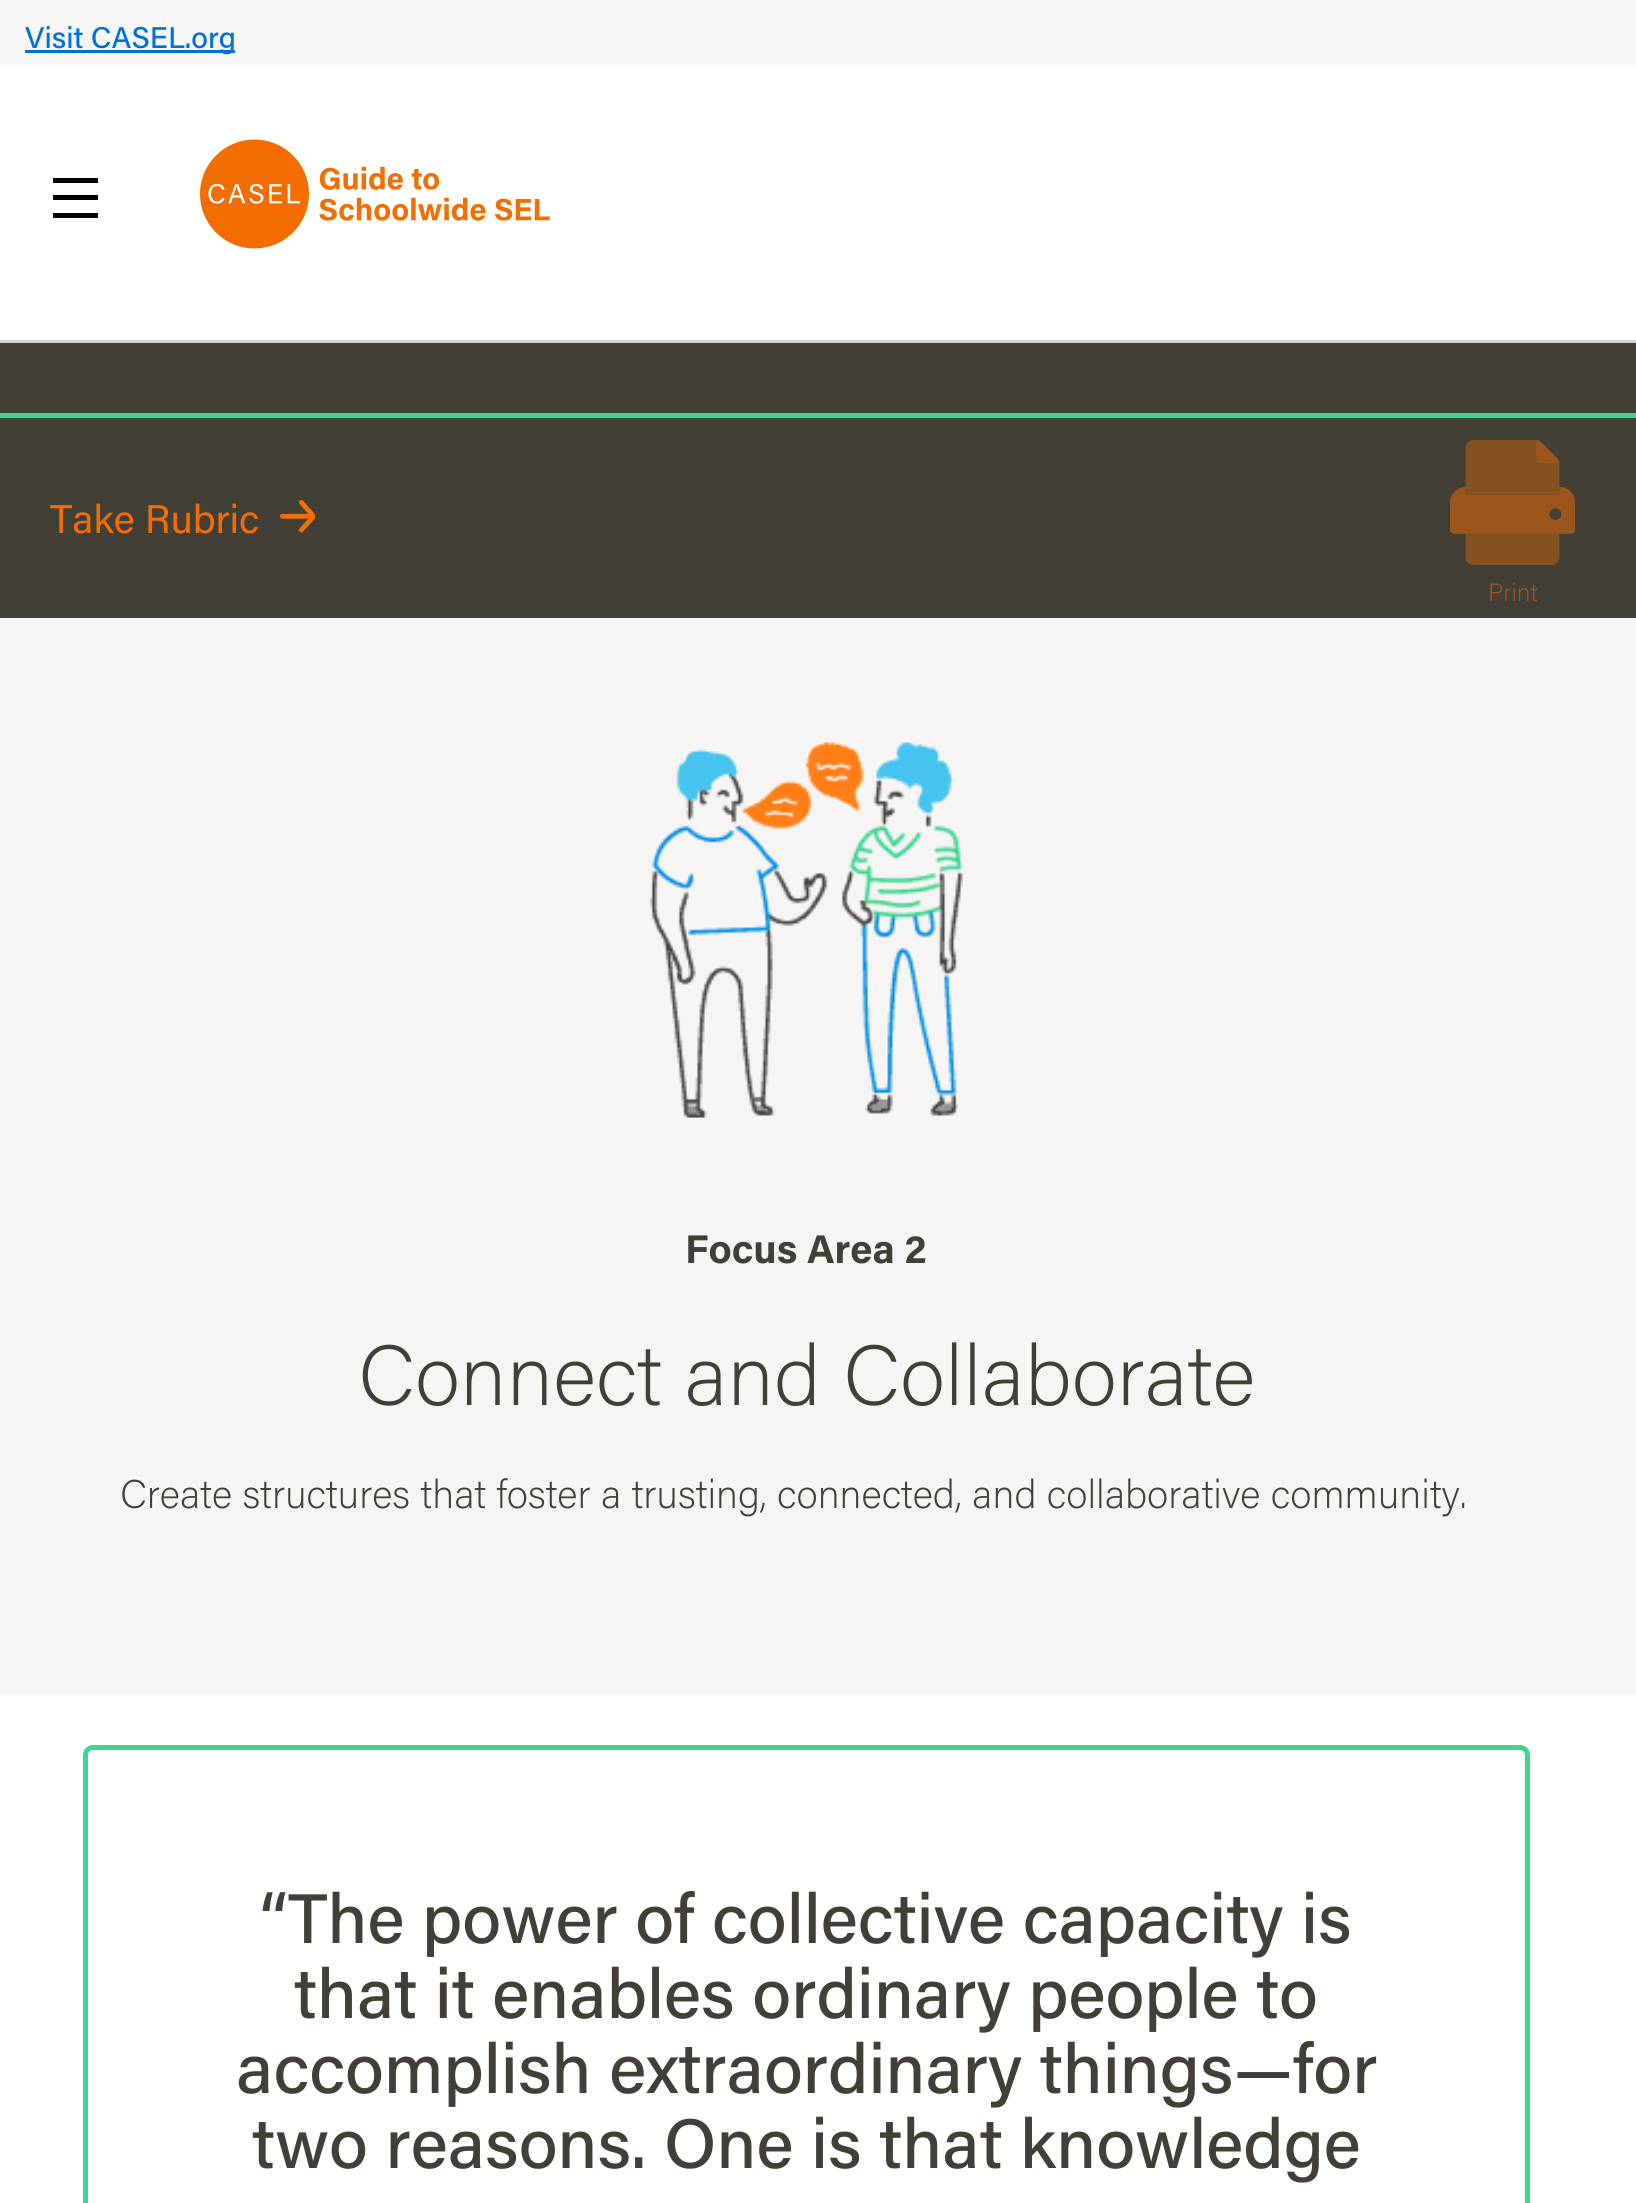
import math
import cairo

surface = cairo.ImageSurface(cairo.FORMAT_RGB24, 1636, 2203)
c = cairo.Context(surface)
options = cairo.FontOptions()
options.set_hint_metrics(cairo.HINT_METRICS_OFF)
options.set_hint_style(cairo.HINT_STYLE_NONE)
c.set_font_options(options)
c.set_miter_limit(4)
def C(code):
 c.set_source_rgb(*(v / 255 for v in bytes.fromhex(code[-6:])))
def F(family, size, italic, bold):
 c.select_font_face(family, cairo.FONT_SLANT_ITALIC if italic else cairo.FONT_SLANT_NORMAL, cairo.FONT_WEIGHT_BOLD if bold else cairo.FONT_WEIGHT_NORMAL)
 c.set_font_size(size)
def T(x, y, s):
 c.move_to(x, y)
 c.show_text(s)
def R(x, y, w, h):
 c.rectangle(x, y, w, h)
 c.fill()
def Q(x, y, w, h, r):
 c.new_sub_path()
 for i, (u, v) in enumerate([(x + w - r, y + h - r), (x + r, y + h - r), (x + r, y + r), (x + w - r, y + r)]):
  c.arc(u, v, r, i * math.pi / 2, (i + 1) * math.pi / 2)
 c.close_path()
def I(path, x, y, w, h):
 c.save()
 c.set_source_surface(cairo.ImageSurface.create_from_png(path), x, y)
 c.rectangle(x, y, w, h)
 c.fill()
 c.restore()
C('ffffff')
c.paint()
C('d3d3d3')
R(0,340,1636,3)
C('f7f7f7')
R(0,0,1636,65)
C('0070da')
R(25,50,210,3)
F('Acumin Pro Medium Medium',30,0,0)
T(25,48,'Visit CASEL.org')
C('000000')
R(53,178,45,5)
R(53,195,45,5)
R(53,213,45,5)
I('1.png',200,139,350,110)
C('423f37')
R(0,343,1636,275)
C('3ed590')
R(0,413,1636,5)
F('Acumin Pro',40,0,0)
C('f36d00')
T(50,533,'Take Rubric')
I('2.png',280,500,35,33)
C('f7f5f4')
R(0,618,1636,1077)
I('3.png',650,742,313,376)
F('Acumin Pro',40,0,1)
C('423f37')
T(685,1263,'Focus Area 2')
F('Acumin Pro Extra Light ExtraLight',85,0,0)
T(358,1405,'Connect and Collaborate')
F('Acumin Pro Extra Light ExtraLight',40,0,0)
T(120,1508,'Create structures that foster a trusting, connected, and collaborative community.')
Q(85.5,1747.5,1442,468,7.5)
C('3ed590')
c.set_line_width(5)
c.stroke()
F('Acumin Pro Medium Medium',70,0,0)
C('423f37')
T(260,1943,'“The power of collective capacity is')
T(294,2018,'that it enables ordinary people to')
T(236,2093,'accomplish extraordinary things—for')
T(252,2168,'two reasons. One is that knowledge')
I('4.png',1450,440,125,125)
F('Acumin Pro Extra Light ExtraLight',25,0,0)
C('9b561c')
T(1488,601,'Print')
surface.write_to_png('o.png')
